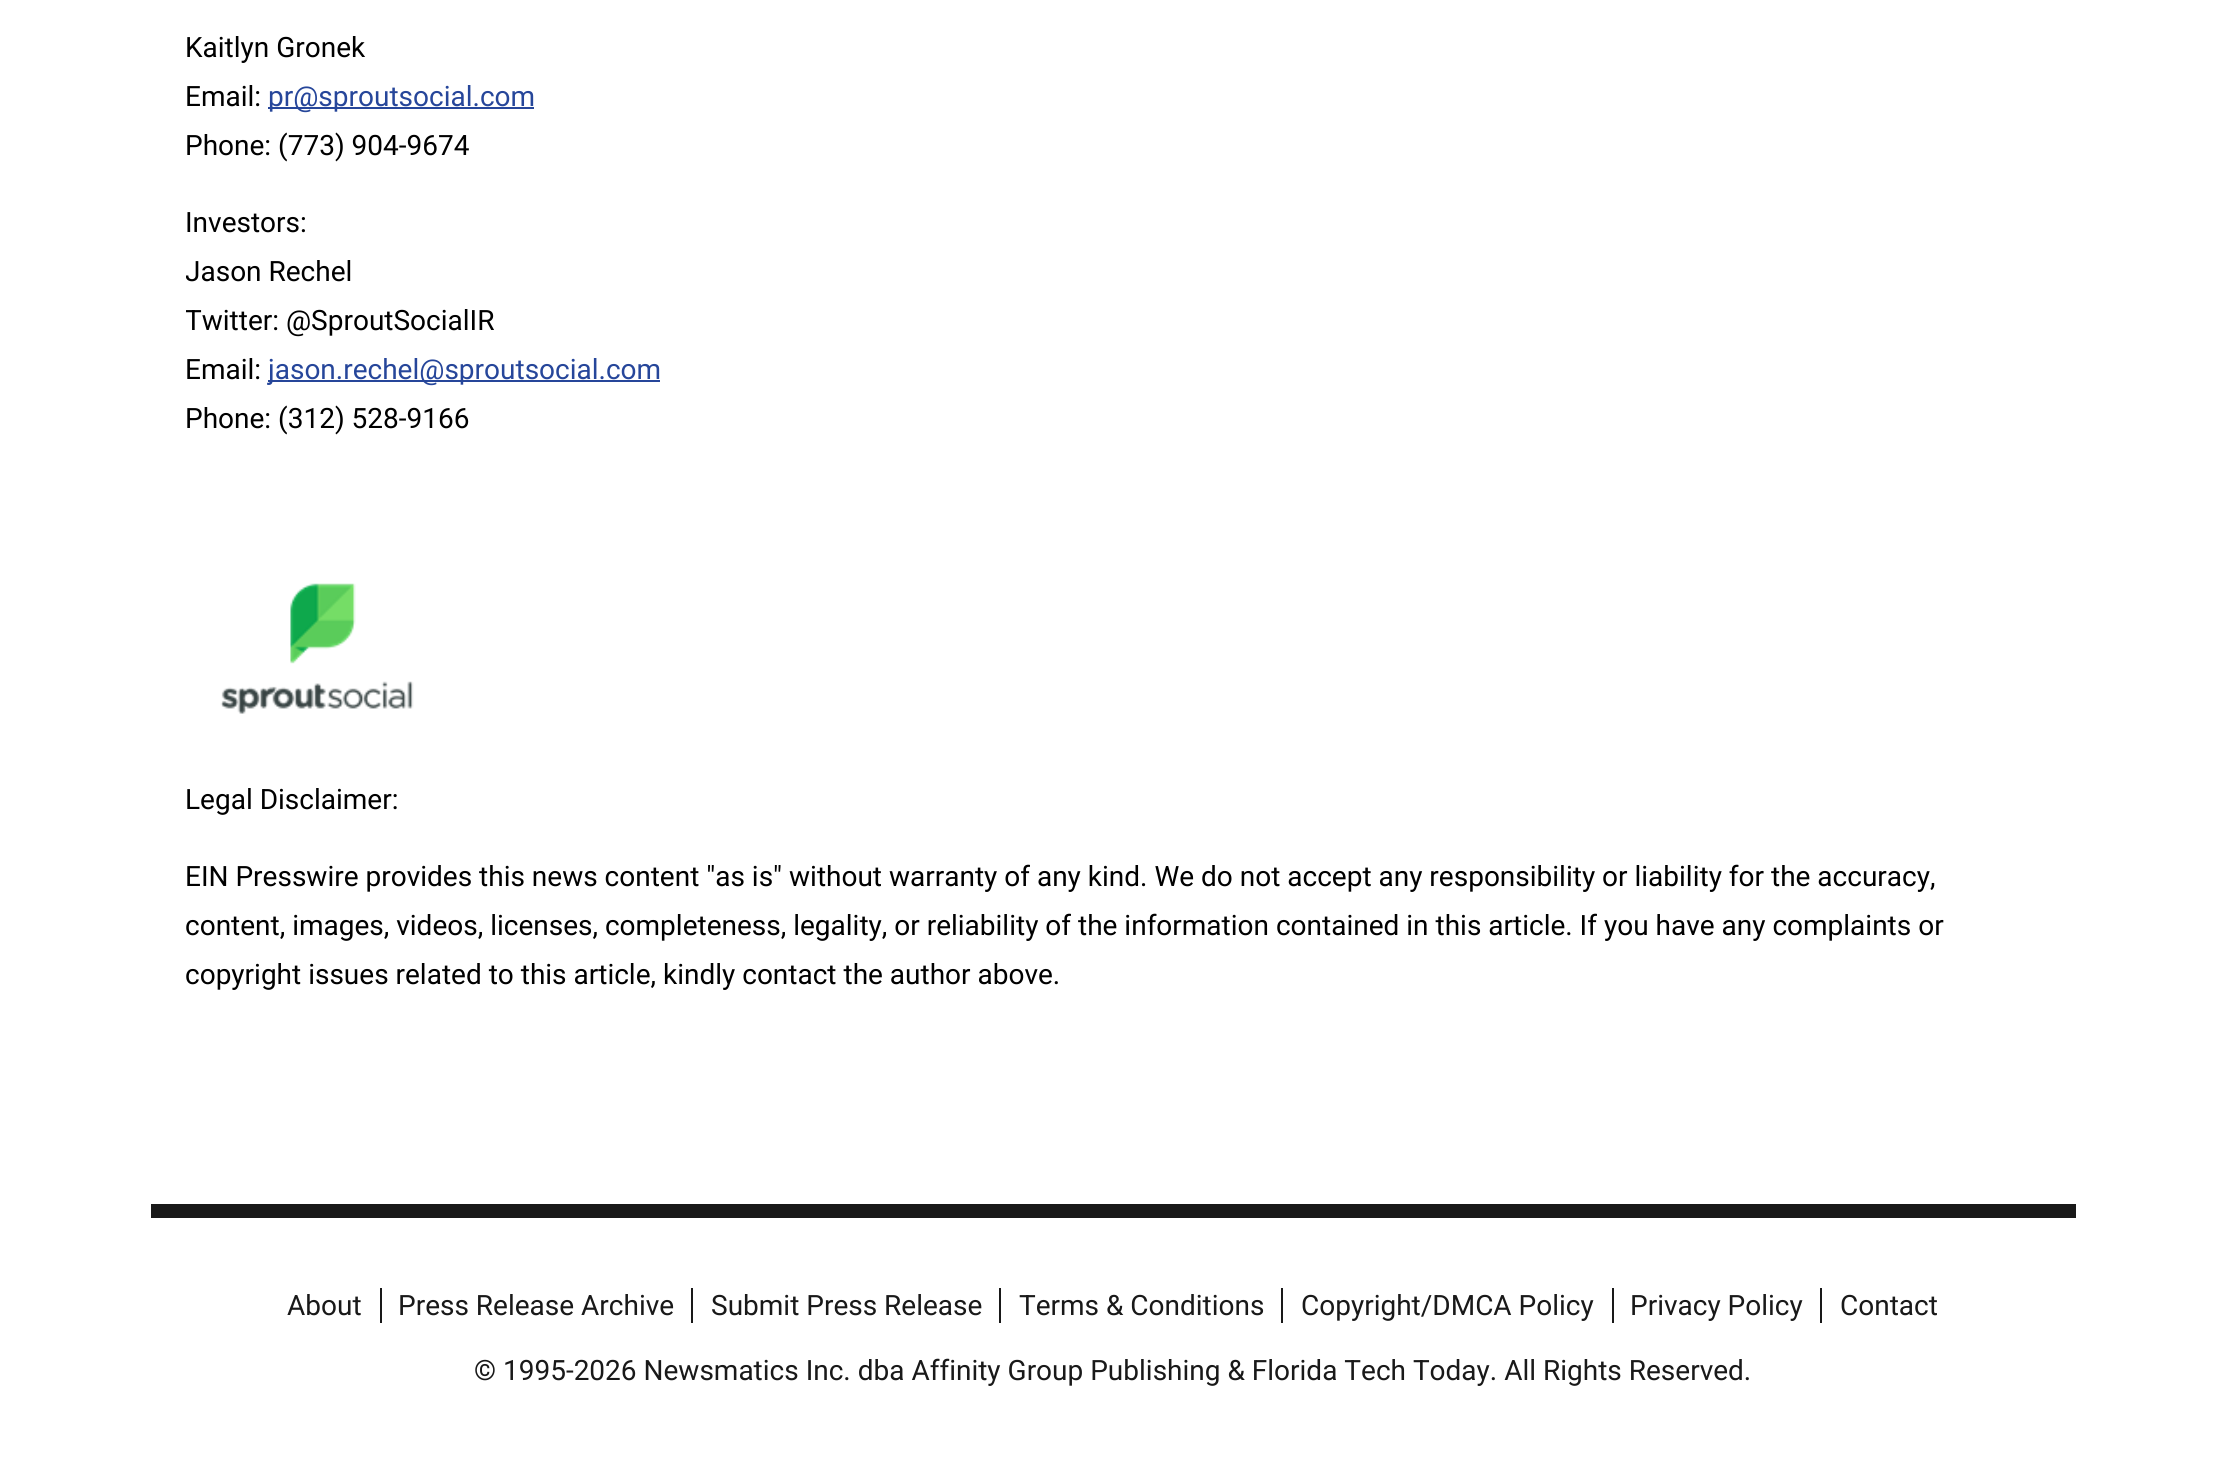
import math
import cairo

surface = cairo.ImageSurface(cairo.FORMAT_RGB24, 2224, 1458)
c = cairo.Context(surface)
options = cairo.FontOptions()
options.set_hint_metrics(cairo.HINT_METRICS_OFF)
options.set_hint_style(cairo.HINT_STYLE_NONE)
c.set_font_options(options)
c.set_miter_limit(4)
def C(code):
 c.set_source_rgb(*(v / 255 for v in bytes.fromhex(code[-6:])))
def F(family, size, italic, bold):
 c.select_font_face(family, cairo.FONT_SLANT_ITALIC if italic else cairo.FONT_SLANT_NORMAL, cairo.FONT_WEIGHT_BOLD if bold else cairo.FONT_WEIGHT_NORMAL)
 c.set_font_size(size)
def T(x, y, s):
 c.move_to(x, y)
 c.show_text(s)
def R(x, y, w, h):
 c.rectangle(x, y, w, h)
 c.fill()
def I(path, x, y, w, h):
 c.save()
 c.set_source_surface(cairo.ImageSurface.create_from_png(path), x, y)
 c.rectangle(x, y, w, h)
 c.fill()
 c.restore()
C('ffffff')
c.paint()
F('Roboto',28,0,0)
C('000000')
T(185,57,'Kaitlyn Gronek')
T(185,106,'Email:')
C('26469a')
R(268,107,266,2)
T(268,106,'pr@sproutsocial.com')
C('000000')
T(185,155,'Phone: (773) 904-9674')
T(185,232,'Investors:')
c.save()
c.rectangle(186,0,1855,1029)
c.clip()
T(185,281,'Jason Rechel')
T(185,330,'Twitter: @SproutSocialIR')
c.restore()
T(185,379,'Email:')
C('26469a')
R(268,380,392,2)
T(268,379,'jason.rechel@sproutsocial.com')
C('000000')
T(185,428,'Phone: (312) 528-9166')
I('1.png',220,583,194,131)
T(185,809,'Legal Disclaimer:')
T(185,886,'EIN Presswire provides this news content "as is" without warranty of any kind. We do not accept any responsibility or liability for the accuracy,')
T(185,935,'content, images, videos, licenses, completeness, legality, or reliability of the information contained in this article. If you have any complaints or')
T(185,984,'copyright issues related to this article, kindly contact the author above.')
C('191919')
R(151,1204,1925,14)
R(380,1288,2,35)
T(287,1315,'About')
R(691,1288,2,35)
T(398,1315,'Press Release Archive')
R(999,1288,2,35)
T(711,1315,'Submit Press Release')
R(1281,1288,2,35)
T(1019,1315,'Terms & Conditions')
R(1612,1288,2,35)
T(1301,1315,'Copyright/DMCA Policy')
R(1820,1288,2,35)
T(1630,1315,'Privacy Policy')
T(1840,1315,'Contact')
T(474,1380,'© 1995-2026 Newsmatics Inc. dba Affinity Group Publishing & Florida Tech Today. All Rights Reserved.')
surface.write_to_png('o.png')
